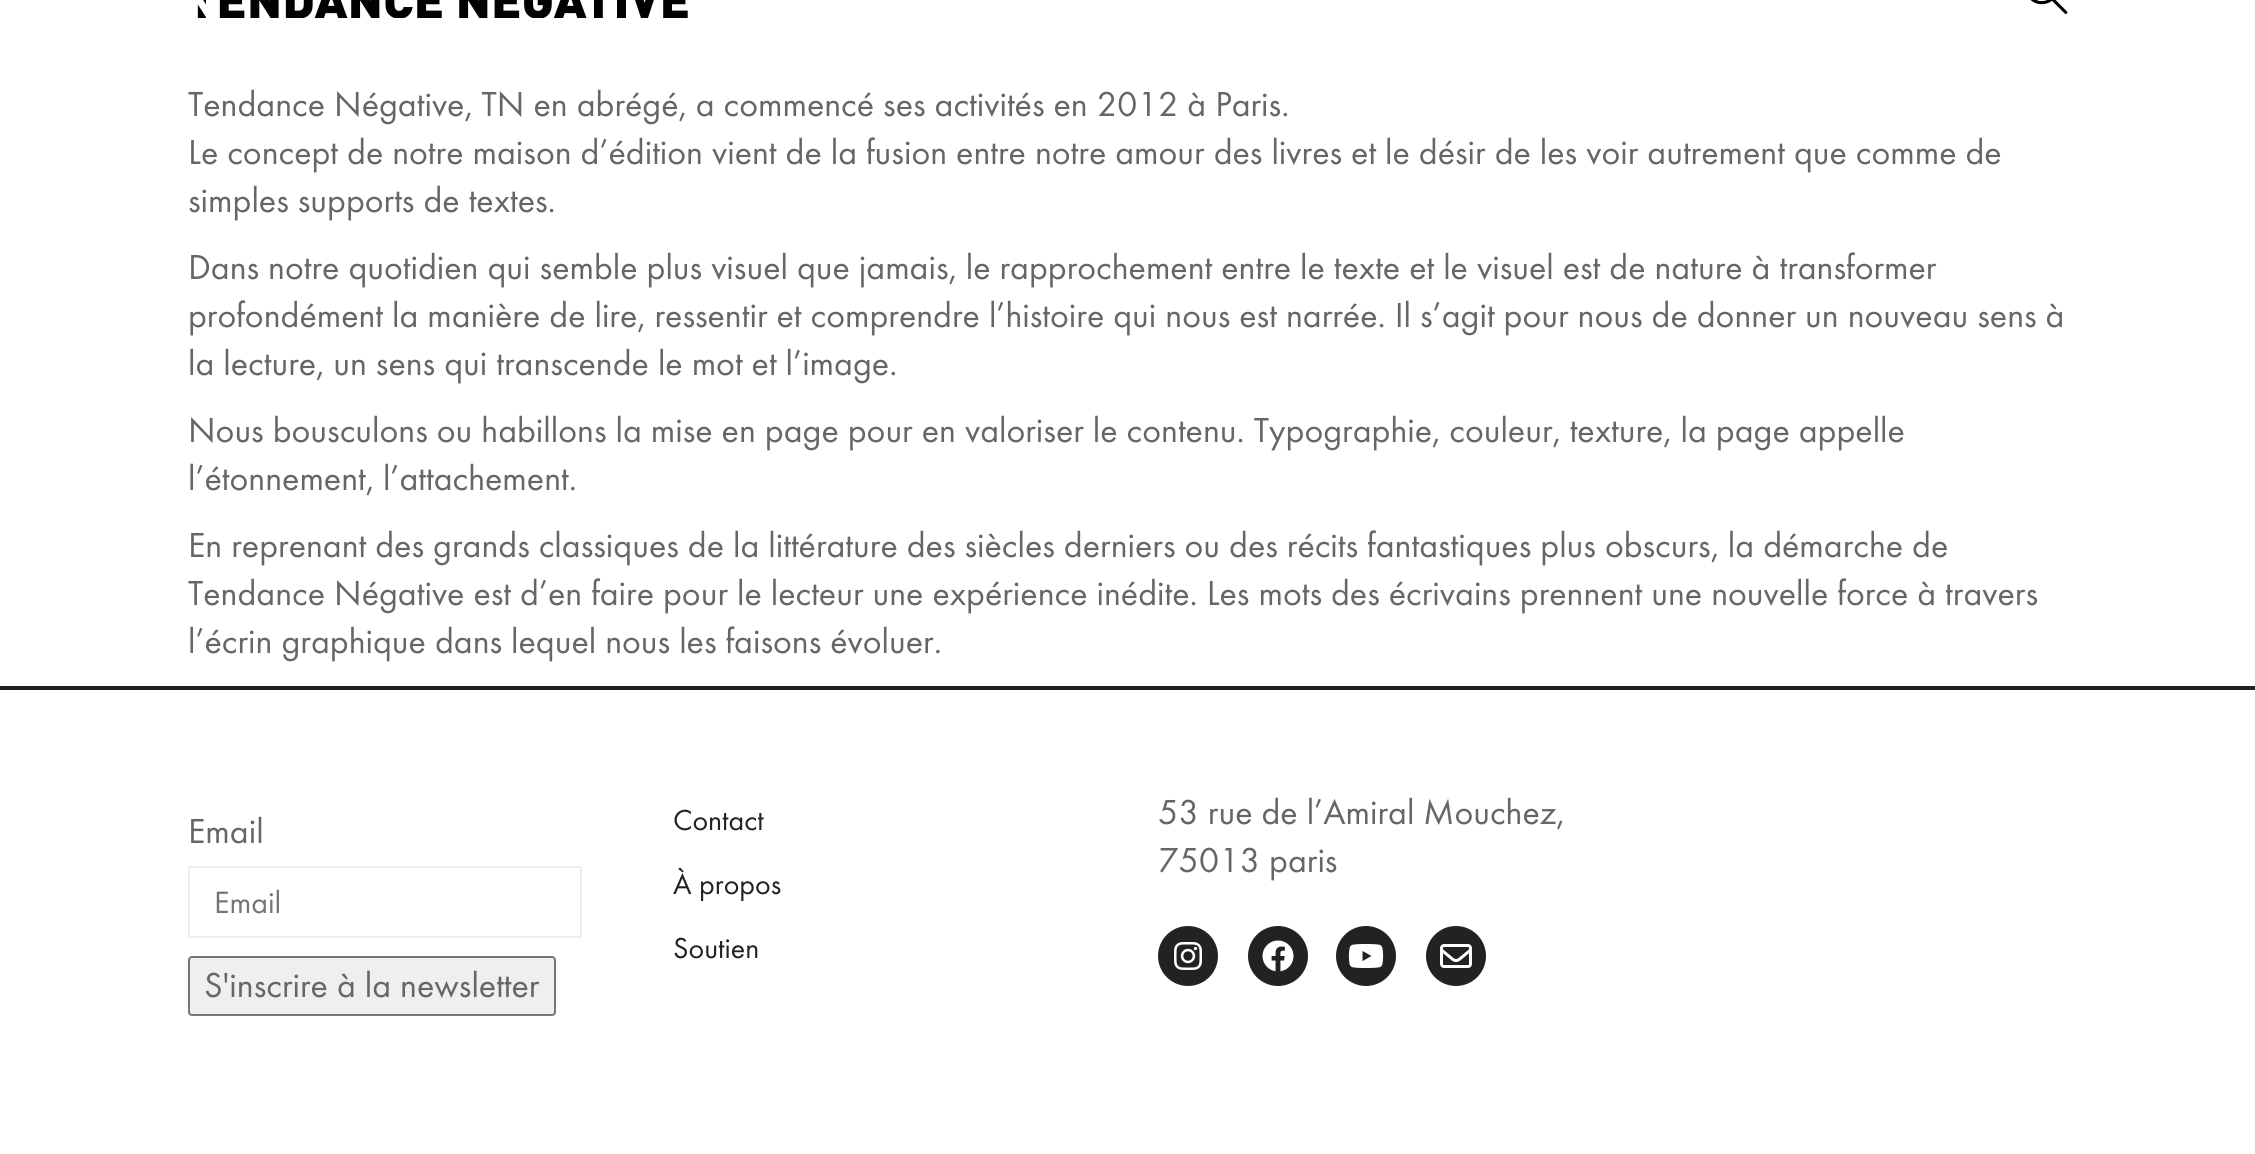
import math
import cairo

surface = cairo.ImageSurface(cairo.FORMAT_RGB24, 2255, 1154)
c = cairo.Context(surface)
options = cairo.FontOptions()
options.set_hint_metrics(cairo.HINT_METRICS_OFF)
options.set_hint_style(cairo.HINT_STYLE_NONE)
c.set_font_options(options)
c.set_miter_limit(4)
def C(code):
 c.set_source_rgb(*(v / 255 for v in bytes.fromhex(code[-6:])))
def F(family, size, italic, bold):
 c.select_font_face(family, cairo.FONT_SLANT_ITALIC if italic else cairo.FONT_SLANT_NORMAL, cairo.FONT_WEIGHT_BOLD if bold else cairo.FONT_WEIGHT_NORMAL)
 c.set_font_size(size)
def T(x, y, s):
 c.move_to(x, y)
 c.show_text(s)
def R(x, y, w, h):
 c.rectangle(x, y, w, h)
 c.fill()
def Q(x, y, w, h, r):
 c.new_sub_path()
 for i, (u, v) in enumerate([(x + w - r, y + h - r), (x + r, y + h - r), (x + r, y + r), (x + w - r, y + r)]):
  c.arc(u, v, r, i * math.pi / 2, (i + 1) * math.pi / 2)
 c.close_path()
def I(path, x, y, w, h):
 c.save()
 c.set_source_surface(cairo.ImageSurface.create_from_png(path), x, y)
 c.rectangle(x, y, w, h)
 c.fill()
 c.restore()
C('ffffff')
c.paint()
I('1.png',197,0,491,18)
I('2.png',2030,0,38,14)
F('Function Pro',36,0,0)
C('666666')
T(188,116,'Tendance Négative, TN en abrégé, a commencé ses activités en 2012 à Paris.')
T(188,164,'Le concept de notre maison d’édition vient de la fusion entre notre amour des livres et le désir de les voir autrement que comme de')
T(188,212,'simples supports de textes.')
T(188,279,'Dans notre quotidien qui semble plus visuel que jamais, le rapprochement entre le texte et le visuel est de nature à transformer')
T(188,327,'profondément la manière de lire, ressentir et comprendre l’histoire qui nous est narrée. Il s’agit pour nous de donner un nouveau sens à')
T(188,375,'la lecture, un sens qui transcende le mot et l’image.')
T(188,442,'Nous bousculons ou habillons la mise en page pour en valoriser le contenu. Typographie, couleur, texture, la page appelle')
T(188,490,'l’étonnement, l’attachement.')
T(188,557,'En reprenant des grands classiques de la littérature des siècles derniers ou des récits fantastiques plus obscurs, la démarche de')
T(188,605,'Tendance Négative est d’en faire pour le lecteur une expérience inédite. Les mots des écrivains prennent une nouvelle force à travers')
T(188,653,'l’écrin graphique dans lequel nous les faisons évoluer.')
C('222222')
R(0,686,2255,4)
C('666666')
T(188,843,'Email')
c.rectangle(189,867,392,70)
C('eeeeee')
c.stroke()
F('Function Pro',32,0,0)
C('757575')
T(214,913,'Email')
C('efefef')
Q(189,957,366,58,3)
c.fill_preserve()
C('767676')
c.stroke()
F('Function Pro',36,0,0)
C('666666')
T(204,997,'S\'inscrire à la newsletter')
F('Function Pro',30,0,0)
C('222222')
T(673,830,'Contact')
T(673,894,'À propos')
T(673,958,'Soutien')
F('Function Pro',36,0,0)
C('666666')
T(1158,824,'53 rue de l’Amiral Mouchez,')
T(1158,872,'75013 paris')
C('222222')
c.new_path()
c.arc(1188,956,30,0,2 * math.pi)
c.fill()
I('3.png',1174,942,28,28)
c.arc(1278,956,30,0,2 * math.pi)
c.fill()
I('4.png',1262,940,32,32)
c.arc(1366,956,30,0,2 * math.pi)
c.fill()
I('5.png',1348,944,36,24)
c.arc(1456,956,30,0,2 * math.pi)
c.fill()
I('6.png',1440,944,32,24)
surface.write_to_png('o.png')
